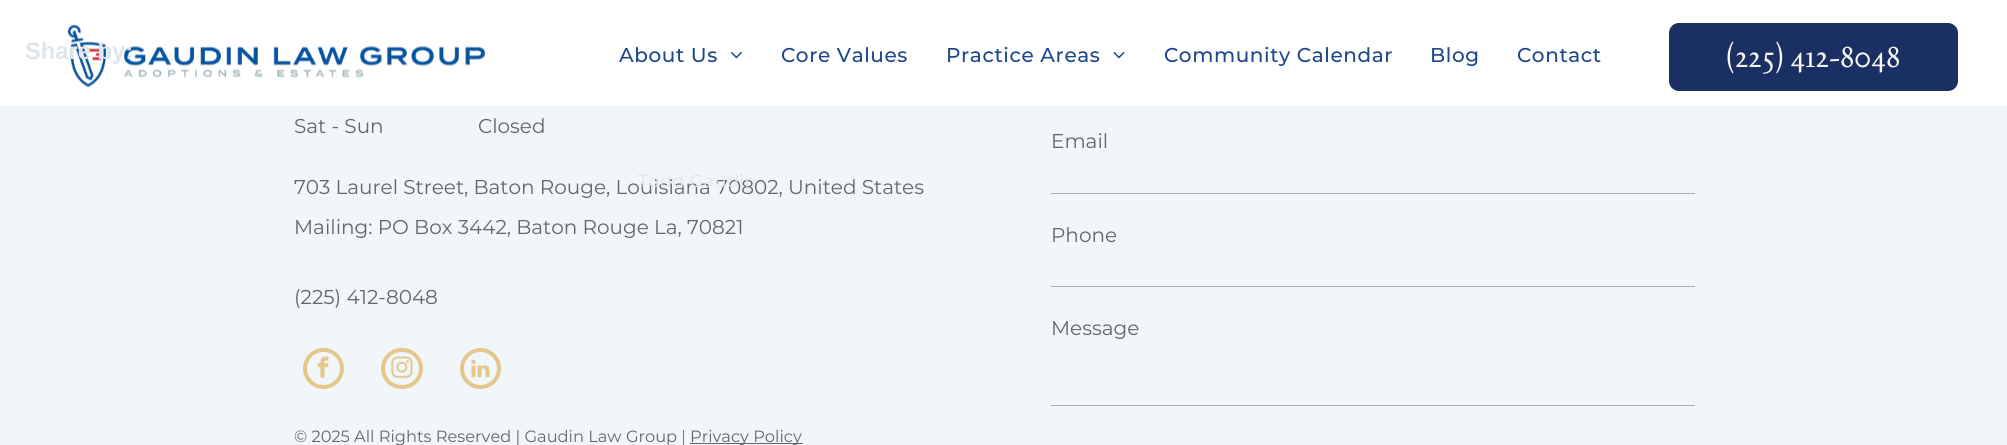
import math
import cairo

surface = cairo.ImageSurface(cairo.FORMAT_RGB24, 2007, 445)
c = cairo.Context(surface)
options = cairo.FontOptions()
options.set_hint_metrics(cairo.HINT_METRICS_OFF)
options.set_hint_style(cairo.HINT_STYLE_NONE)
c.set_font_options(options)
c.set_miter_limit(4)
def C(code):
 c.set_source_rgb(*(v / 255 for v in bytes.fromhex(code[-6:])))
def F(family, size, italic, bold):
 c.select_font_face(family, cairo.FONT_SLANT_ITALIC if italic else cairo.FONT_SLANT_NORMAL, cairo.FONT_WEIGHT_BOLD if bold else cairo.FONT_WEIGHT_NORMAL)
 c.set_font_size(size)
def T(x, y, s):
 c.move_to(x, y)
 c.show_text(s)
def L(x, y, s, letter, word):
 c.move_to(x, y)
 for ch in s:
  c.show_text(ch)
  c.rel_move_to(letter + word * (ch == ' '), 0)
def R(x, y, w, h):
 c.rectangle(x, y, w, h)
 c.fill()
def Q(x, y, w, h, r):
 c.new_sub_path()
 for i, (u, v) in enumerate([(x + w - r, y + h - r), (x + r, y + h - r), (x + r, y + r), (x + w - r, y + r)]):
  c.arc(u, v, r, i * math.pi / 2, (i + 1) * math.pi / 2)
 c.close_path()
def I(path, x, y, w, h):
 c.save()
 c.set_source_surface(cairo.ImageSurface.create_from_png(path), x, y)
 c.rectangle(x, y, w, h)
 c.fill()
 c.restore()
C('f0f6fa')
c.paint()
C('ffffff')
R(0,0,2007,106)
I('1.png',67,24,418,64)
F('Liberation Sans',23.75,0,1)
C('e0e5e9')
T(25,59,'Share by:')
F('Montserrat Medium',20,0,0)
C('1f478b')
L(619,62,'About Us',.6,0)
I('2.png',730,52,12,7)
F('Montserrat',20,0,0)
C('666666')
T(294,194,'703 Laurel Street, Baton Rouge, Louisiana 70802, United States')
F('Montserrat',17.5,0,0)
C('e0e5e9')
L(638,187,'Todd Gaudin',.5,0)
F('Montserrat Medium',20,0,0)
C('1f478b')
L(781,62,'Core Values',.6,0)
L(946,62,'Practice Areas',.6,0)
I('3.png',1113,52,12,7)
L(1164,62,'Community Calendar',.6,0)
L(1430,62,'Blog',.6,0)
L(1517,62,'Contact',.6,0)
C('1a2f63')
Q(1669,23,289,68,10)
c.fill()
F('Joan',30,0,0)
C('f9f7f3')
T(1725,67,'(225) 412-8048')
F('Montserrat',20,0,0)
C('666666')
T(294,133,'Sat - Sun')
T(478,133,'Closed')
T(294,234,'Mailing: PO Box 3442, Baton Rouge La, 70821')
T(294,304,'(225) 412-8048')
c.new_path()
c.arc(323.5,368.5,18.5,0,2 * math.pi)
C('e6c689')
c.set_line_width(4)
c.stroke()
I('4.png',317,356,12,22)
Q(383,350,38,37,18.5)
c.stroke()
I('5.png',391,356,22,22)
c.arc(480.5,368.5,18.5,0,2 * math.pi)
c.stroke()
I('6.png',471,359,19,19)
F('Montserrat',16.25,0,0)
C('666666')
T(294,442,'© 2025 All Rights Reserved | Gaudin Law Group |')
R(690,443,113,1)
T(690,442,'Privacy Policy')
F('Montserrat',20,0,0)
T(1051,148,'Email')
C('abaeb0')
R(1051,193,644,1)
C('666666')
T(1051,242,'Phone')
C('abaeb0')
R(1051,286,644,1)
C('666666')
T(1051,335,'Message')
C('abaeb0')
R(1051,405,644,1)
surface.write_to_png('o.png')
